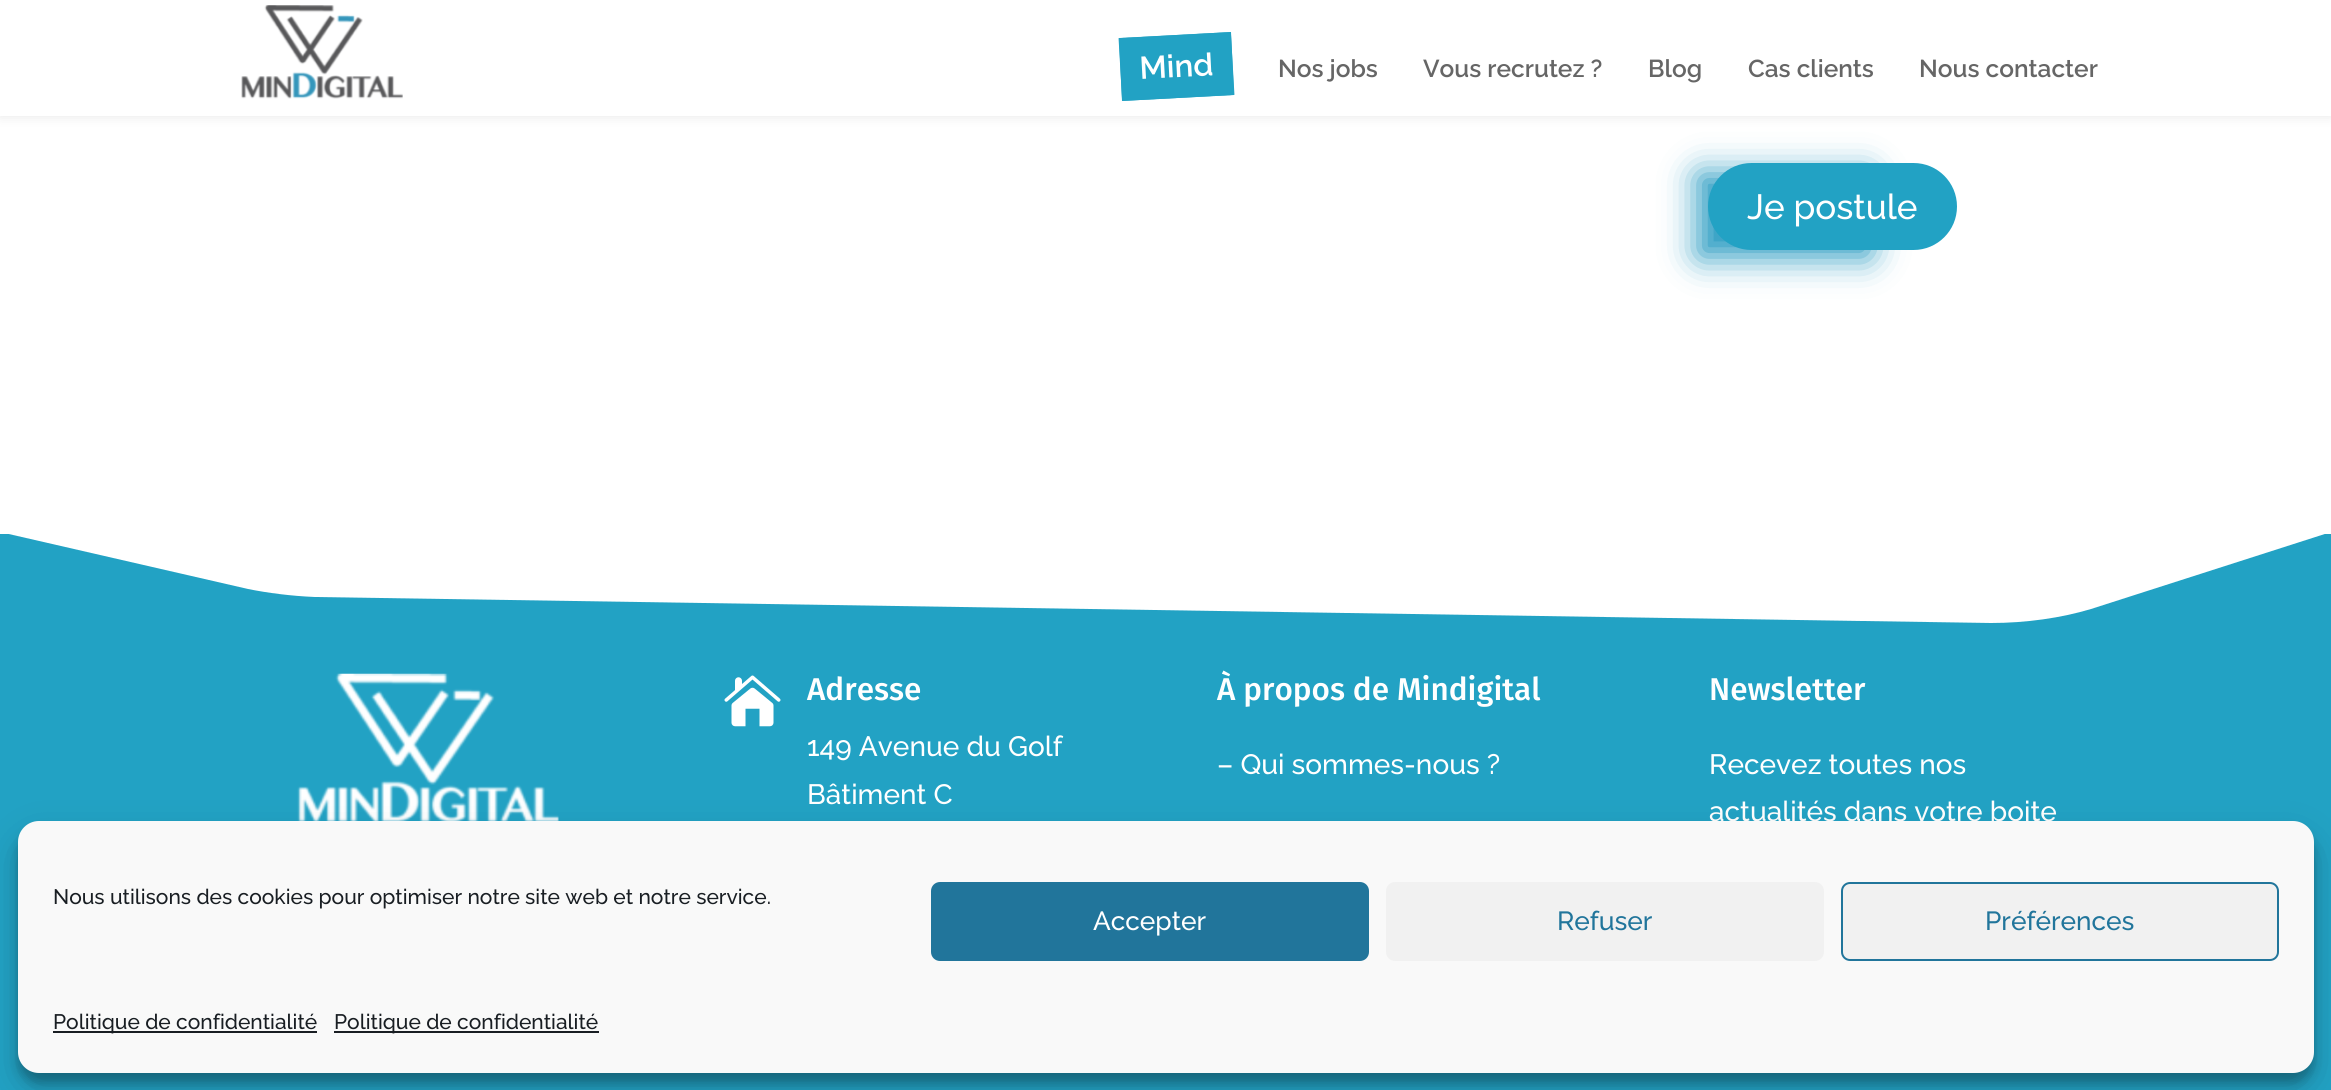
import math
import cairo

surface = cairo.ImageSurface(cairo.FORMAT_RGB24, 2331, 1090)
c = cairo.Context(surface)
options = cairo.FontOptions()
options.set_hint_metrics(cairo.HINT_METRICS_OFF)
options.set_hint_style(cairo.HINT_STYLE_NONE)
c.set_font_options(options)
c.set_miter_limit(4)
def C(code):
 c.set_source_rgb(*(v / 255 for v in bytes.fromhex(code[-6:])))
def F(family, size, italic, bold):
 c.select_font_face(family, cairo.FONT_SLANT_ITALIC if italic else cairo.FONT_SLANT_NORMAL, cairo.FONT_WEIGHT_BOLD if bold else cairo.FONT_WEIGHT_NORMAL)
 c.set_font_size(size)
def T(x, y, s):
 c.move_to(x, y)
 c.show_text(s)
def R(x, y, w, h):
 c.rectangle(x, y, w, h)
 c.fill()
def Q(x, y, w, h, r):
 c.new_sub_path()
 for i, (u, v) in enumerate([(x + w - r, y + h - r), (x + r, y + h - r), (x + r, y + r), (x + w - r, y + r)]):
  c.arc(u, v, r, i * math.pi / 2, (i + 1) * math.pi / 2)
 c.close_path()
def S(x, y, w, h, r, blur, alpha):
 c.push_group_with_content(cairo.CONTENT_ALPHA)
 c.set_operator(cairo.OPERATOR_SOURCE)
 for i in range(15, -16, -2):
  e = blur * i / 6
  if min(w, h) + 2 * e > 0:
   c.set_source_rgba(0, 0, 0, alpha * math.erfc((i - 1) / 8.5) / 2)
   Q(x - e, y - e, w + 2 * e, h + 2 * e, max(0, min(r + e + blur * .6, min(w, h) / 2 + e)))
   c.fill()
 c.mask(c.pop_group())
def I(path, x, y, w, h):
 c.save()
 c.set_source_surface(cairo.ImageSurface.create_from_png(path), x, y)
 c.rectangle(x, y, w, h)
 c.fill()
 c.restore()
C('ffffff')
c.paint()
C('000000')
S(0,0,2331,116,0,6,.1)
C('ffffff')
R(0,0,2331,116)
I('1.png',241,5,162,94)
C('22a2c4')
c.new_path()
c.move_to(1119,38)
c.line_to(1231,32)
c.line_to(1234,95)
c.line_to(1122,101)
c.close_path()
c.fill()
c.new_path()
c.move_to(1119.5,39)
c.line_to(1230,33)
c.line_to(1233.5,94)
c.line_to(1123,100)
c.close_path()
c.set_line_width(1.8)
c.stroke()
F('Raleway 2 Thin',31.5,0,0)
C('ffffff')
c.save()
c.translate(1140,79)
c.rotate(-3 * math.pi / 180)
T(0,0,'Mind')
c.restore()
F('Raleway 2 Thin',24.5,0,0)
C('666666')
T(1278,77,'Nos jobs')
T(1423,77,'Vous recrutez ?')
T(1648,77,'Blog')
T(1748,77,'Cas clients')
T(1919,77,'Nous contacter')
C('1a94bd')
S(1699,175,170,81,0,17.5,1)
C('22a2c4')
Q(1708,163,249,87,43.5)
c.fill()
F('Raleway Thin',35,0,0)
C('ffffff')
T(1747,219,'Je postule')
C('22a2c4')
R(0,534,2331,556)
C('ffffff')
c.new_path()
c.move_to(2331,532)
c.line_to(2091,609)
c.curve_to(2061,618,2026,623,1991,623)
c.line_to(315,597)
c.curve_to(291,596,268,593,248,589)
c.line_to(0,532)
c.close_path()
c.fill()
I('2.png',297,673,262,148)
I('3.png',724,675,57,52)
F('Fira Sans Medium',31.5,0,0)
T(807,700,'Adresse')
F('Raleway Thin',28,0,0)
T(807,756,'149 Avenue du Golf')
T(807,804,'Bâtiment C')
F('Fira Sans Medium',31.5,0,0)
T(1217,700,'À propos de Mindigital')
F('Raleway Thin',28,0,0)
T(1217,774,'– Qui sommes-nous ?')
F('Fira Sans Medium',31.5,0,0)
T(1709,700,'Newsletter')
F('Raleway Thin',28,0,0)
T(1709,774,'Recevez toutes nos')
T(1709,821,'actualités dans votre boite')
C('000000')
S(18,831,2296,252,21,5,.23)
S(18,838,2296,252,21,17.5,.19)
C('f9f9f9')
Q(18,821,2296,252,21)
c.fill()
F('Raleway Thin',21,0,0)
C('191e23')
T(53,904,'Nous utilisons des cookies pour optimiser notre site web et notre service.')
C('21759b')
Q(932,883,436,77,8)
c.fill_preserve()
c.set_line_width(2)
c.stroke()
F('Raleway Thin',26.25,0,0)
C('ffffff')
T(1093,930,'Accepter')
C('f1f1f1')
Q(1386,882,438,79,9)
c.fill()
C('21759b')
T(1557,930,'Refuser')
C('f1f1f1')
Q(1842,883,436,77,8)
c.fill_preserve()
C('21759b')
c.stroke()
T(1985,930,'Préférences')
C('191e23')
R(53,1031,264,2)
F('Raleway Thin',21,0,0)
T(53,1029,'Politique de confidentialité')
R(334,1031,265,2)
T(334,1029,'Politique de confidentialité')
surface.write_to_png('o.png')
